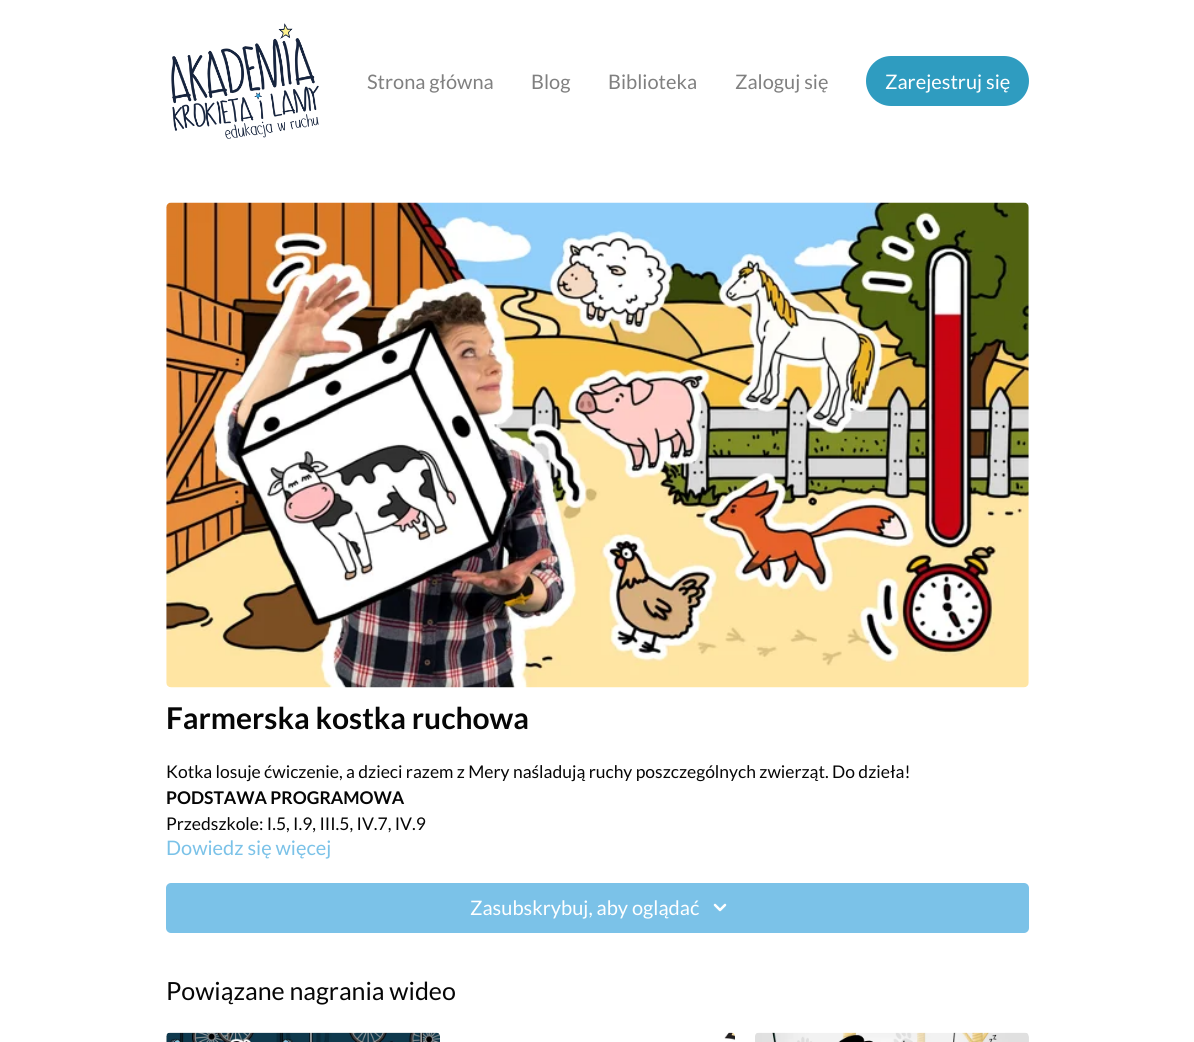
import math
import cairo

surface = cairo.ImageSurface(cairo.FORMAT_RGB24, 1194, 1042)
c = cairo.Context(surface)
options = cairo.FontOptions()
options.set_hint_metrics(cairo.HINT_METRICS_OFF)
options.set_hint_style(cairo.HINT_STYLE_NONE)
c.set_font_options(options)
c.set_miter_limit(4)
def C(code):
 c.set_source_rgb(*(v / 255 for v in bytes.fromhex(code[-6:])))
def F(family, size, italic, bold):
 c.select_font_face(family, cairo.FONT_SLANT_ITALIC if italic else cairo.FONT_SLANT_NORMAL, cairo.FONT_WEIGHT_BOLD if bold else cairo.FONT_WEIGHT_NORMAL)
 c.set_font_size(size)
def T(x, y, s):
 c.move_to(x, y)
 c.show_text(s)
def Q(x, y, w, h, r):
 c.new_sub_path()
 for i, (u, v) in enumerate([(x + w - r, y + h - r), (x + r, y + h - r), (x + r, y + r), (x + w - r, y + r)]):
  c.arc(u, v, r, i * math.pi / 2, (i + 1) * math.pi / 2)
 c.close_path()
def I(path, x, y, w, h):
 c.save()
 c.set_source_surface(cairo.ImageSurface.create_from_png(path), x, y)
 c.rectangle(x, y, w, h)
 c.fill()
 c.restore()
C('ffffff')
c.paint()
I('1.png',171,23,148,116)
F('Lato',20,0,0)
C('808080')
T(367,89,'Strona główna')
T(531,89,'Blog')
T(608,89,'Biblioteka')
T(735,89,'Zaloguj się')
C('2f9cc0')
Q(866,56,163,50,25)
c.fill()
C('ffffff')
T(885,89,'Zarejestruj się')
I('2.png',166,202,863,486)
F('Lato',30,0,1)
C('060606')
T(166,729,'Farmerska kostka ruchowa')
F('Lato',17.5,0,0)
T(166,778,'Kotka losuje ćwiczenie, a dzieci razem z Mery naśladują ruchy poszczególnych zwierząt. Do dzieła!')
F('Lato',17.5,0,1)
T(166,804,'PODSTAWA PROGRAMOWA')
F('Lato',17.5,0,0)
T(166,830,'Przedszkole: I.5, I.9, III.5, IV.7, IV.9')
F('Lato',20,0,0)
C('7bc2e8')
T(166,855,'Dowiedz się więcej')
Q(166,883,863,50,5)
c.fill()
C('ffffff')
T(470,915,'Zasubskrybuj, aby oglądać')
I('3.png',713,903,14,9)
F('Lato',25,0,0)
C('060606')
T(166,1000,'Powiązane nagrania wideo')
gradient = cairo.LinearGradient(166,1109,440,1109)
gradient.add_color_stop_rgba(.08,0.871,0.871,0.871,1)
gradient.add_color_stop_rgba(.18,0.878,0.878,0.878,1)
gradient.add_color_stop_rgba(.33,0.89,0.89,0.89,1)
c.set_source(gradient)
Q(166,1033,274,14,5)
c.fill()
I('4.png',166,1032,274,10)
I('5.png',460,1032,275,10)
gradient = cairo.LinearGradient(755,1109,1029,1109)
gradient.add_color_stop_rgba(.08,0.871,0.871,0.871,1)
gradient.add_color_stop_rgba(.18,0.878,0.878,0.878,1)
gradient.add_color_stop_rgba(.33,0.89,0.89,0.89,1)
c.set_source(gradient)
Q(755,1033,274,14,5)
c.fill()
I('6.png',755,1032,274,10)
surface.write_to_png('o.png')
